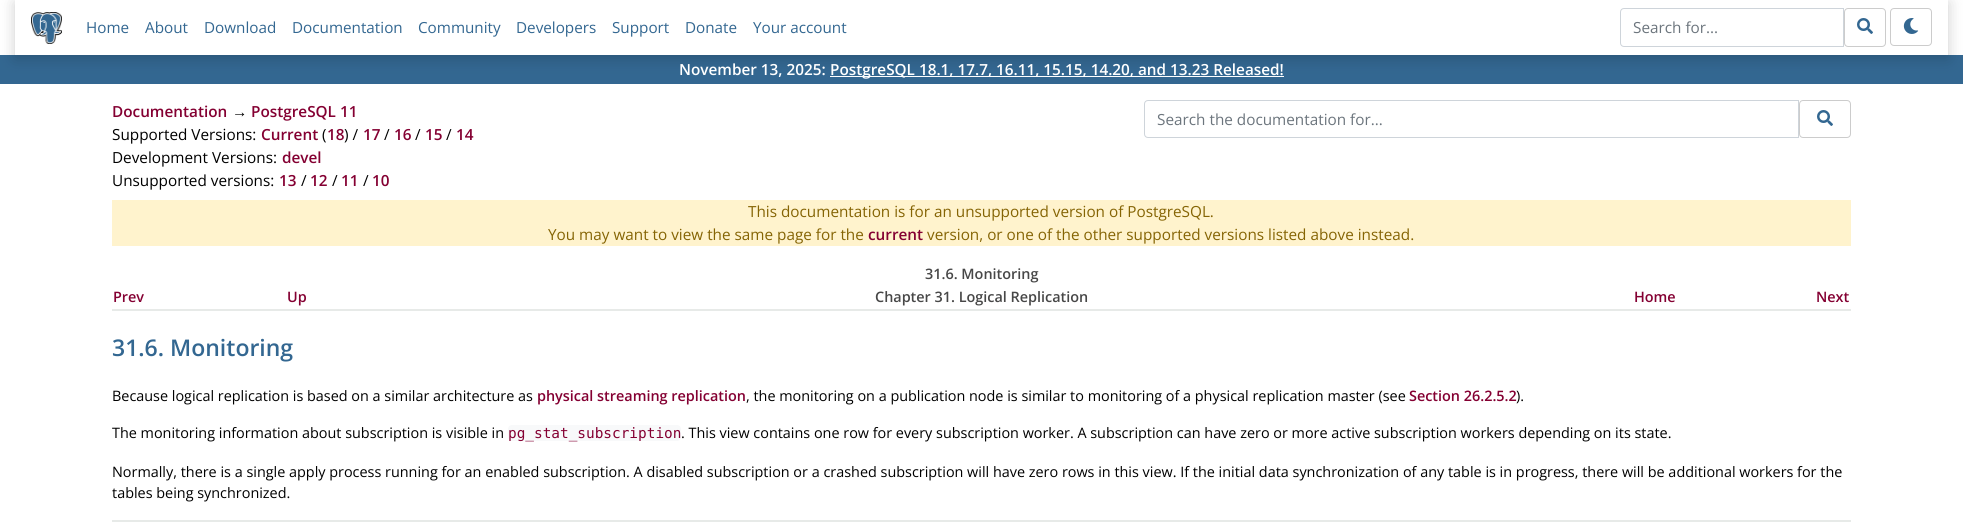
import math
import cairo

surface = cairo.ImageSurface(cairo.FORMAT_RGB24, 1963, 528)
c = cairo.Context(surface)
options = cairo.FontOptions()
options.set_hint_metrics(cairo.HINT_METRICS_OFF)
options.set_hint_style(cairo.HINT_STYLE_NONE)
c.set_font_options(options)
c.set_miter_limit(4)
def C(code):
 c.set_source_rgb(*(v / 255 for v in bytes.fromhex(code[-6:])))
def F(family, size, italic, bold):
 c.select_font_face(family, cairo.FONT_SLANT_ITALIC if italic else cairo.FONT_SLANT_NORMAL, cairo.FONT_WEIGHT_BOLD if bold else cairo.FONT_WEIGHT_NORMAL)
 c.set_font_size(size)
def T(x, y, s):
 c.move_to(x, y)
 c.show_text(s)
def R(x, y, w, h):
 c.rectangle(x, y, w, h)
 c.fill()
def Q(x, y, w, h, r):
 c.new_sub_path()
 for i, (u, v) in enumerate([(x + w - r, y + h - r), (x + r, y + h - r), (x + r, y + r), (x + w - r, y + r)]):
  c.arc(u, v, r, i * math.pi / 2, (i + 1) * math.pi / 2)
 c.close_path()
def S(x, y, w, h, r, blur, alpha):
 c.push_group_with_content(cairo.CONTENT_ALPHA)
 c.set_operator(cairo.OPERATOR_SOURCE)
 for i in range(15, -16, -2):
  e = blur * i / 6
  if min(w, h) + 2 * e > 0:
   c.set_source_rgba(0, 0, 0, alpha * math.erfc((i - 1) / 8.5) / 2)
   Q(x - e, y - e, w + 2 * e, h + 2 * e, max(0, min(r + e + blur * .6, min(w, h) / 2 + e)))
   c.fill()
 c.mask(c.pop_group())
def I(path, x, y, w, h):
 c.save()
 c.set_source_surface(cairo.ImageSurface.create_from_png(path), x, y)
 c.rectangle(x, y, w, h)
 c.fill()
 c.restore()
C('ffffff')
c.paint()
C('336791')
R(0,55,1963,29)
c.save()
c.set_fill_rule(cairo.FILL_RULE_EVEN_ODD)
c.new_path()
c.move_to(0,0)
c.line_to(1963,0)
c.line_to(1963,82)
c.line_to(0,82)
c.close_path()
c.move_to(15,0)
c.line_to(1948,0)
c.line_to(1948,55)
c.line_to(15,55)
c.close_path()
c.clip()
C('000000')
S(15,3,1933,55,0,7.5,.2)
c.restore()
I('1.png',31,12,31,32)
F('Open Sans',15.25,0,0)
T(86,33,'Home')
T(145,33,'About')
T(204,33,'Download')
T(292,33,'Documentation')
T(418,33,'Community')
T(516,33,'Developers')
T(612,33,'Support')
T(685,33,'Donate')
T(753,33,'Your account')
c.new_path()
c.move_to(1624,8.5)
c.line_to(1843.5,8.5)
c.line_to(1843.5,46.5)
c.line_to(1624,46.5)
c.curve_to(1622,46.5,1620.5,45,1620.5,43)
c.line_to(1620.5,12)
c.curve_to(1620.5,10,1622,8.5,1624,8.5)
c.close_path()
C('ced4da')
c.set_line_width(1)
c.stroke()
F('Open Sans',15.3,0,0)
C('6c757d')
T(1633,33,'Search for...')
Q(1844.5,8.5,41,38,3.5)
C('cccccc')
c.stroke()
I('2.png',1857,18,16,16)
Q(1890.5,8.5,41,37,3.5)
c.stroke()
I('3.png',1903,18,16,16)
F('Open Sans SemiBold',15.3,0,0)
C('ffffff')
T(679,75,'November 13, 2025:')
R(830,76,454,1)
T(830,75,'PostgreSQL 18.1, 17.7, 16.11, 15.15, 14.20, and 13.23 Released!')
C('840032')
T(112,117,'Documentation')
F('Liberation Sans',15.3,0,0)
C('000000')
T(232,117,'→')
F('Open Sans SemiBold',15.3,0,0)
C('840032')
T(251,117,'PostgreSQL 11')
F('Open Sans',15.3,0,0)
C('000000')
T(112,140,'Supported Versions:')
F('Open Sans SemiBold',15.3,0,0)
C('840032')
T(261,140,'Current')
F('Open Sans',15.3,0,0)
C('000000')
T(322,140,'(')
F('Open Sans SemiBold',15.3,0,0)
C('840032')
T(327,140,'18')
F('Open Sans',15.3,0,0)
C('000000')
T(344,140,') /')
F('Open Sans SemiBold',15.3,0,0)
C('840032')
T(363,140,'17')
F('Open Sans',15.3,0,0)
C('000000')
T(384,140,'/')
F('Open Sans SemiBold',15.3,0,0)
C('840032')
T(394,140,'16')
F('Open Sans',15.3,0,0)
C('000000')
T(415,140,'/')
F('Open Sans SemiBold',15.3,0,0)
C('840032')
T(425,140,'15')
F('Open Sans',15.3,0,0)
C('000000')
T(446,140,'/')
F('Open Sans SemiBold',15.3,0,0)
C('840032')
T(456,140,'14')
F('Open Sans',15.3,0,0)
C('000000')
T(112,163,'Development Versions:')
F('Open Sans SemiBold',15.3,0,0)
C('840032')
T(282,163,'devel')
F('Open Sans',15.3,0,0)
C('000000')
T(112,186,'Unsupported versions:')
F('Open Sans SemiBold',15.3,0,0)
C('840032')
T(279,186,'13')
F('Open Sans',15.3,0,0)
C('000000')
T(301,186,'/')
F('Open Sans SemiBold',15.3,0,0)
C('840032')
T(310,186,'12')
F('Open Sans',15.3,0,0)
C('000000')
T(332,186,'/')
F('Open Sans SemiBold',15.3,0,0)
C('840032')
T(341,186,'11')
F('Open Sans',15.3,0,0)
C('000000')
T(363,186,'/')
F('Open Sans SemiBold',15.3,0,0)
C('840032')
T(372,186,'10')
c.new_path()
c.move_to(1148,100.5)
c.line_to(1798.5,100.5)
c.line_to(1798.5,137.5)
c.line_to(1148,137.5)
c.curve_to(1146,137.5,1144.5,136,1144.5,134)
c.line_to(1144.5,104)
c.curve_to(1144.5,102,1146,100.5,1148,100.5)
c.close_path()
C('ced4da')
c.stroke()
F('Open Sans',15.3,0,0)
C('6c757d')
T(1157,125,'Search the documentation for...')
Q(1799.5,100.5,51,37,3.5)
C('cccccc')
c.stroke()
I('2.png',1817,110,16,16)
C('fff3cd')
R(112,200,1739,46)
C('856404')
T(748,217,'This documentation is for an unsupported version of PostgreSQL.')
T(548,240,'You may want to view the same page for the')
F('Open Sans SemiBold',15.3,0,0)
C('840032')
T(868,240,'current')
F('Open Sans',15.3,0,0)
C('856404')
T(927,240,'version, or one of the other supported versions listed above instead.')
F('Open Sans SemiBold',14.4,0,0)
C('474747')
T(925,279,'31.6. Monitoring')
C('840032')
T(113,302,'Prev')
T(287,302,'Up')
C('474747')
T(875,302,'Chapter 31. Logical Replication')
C('840032')
T(1634,302,'Home')
T(1816,302,'Next')
C('e7eae8')
R(112,309,1739,2)
F('Open Sans SemiBold',23,0,0)
C('336791')
T(112,356,'31.6. Monitoring')
F('Open Sans',14.4,0,0)
C('000000')
T(112,401,'Because logical replication is based on a similar architecture as')
F('Open Sans SemiBold',14.4,0,0)
C('840032')
T(537,401,'physical streaming replication')
F('Open Sans',14.4,0,0)
C('000000')
T(746,401,', the monitoring on a publication node is similar to monitoring of a physical replication master (see')
F('Open Sans SemiBold',14.4,0,0)
C('840032')
T(1409,401,'Section 26.2.5.2')
F('Open Sans',14.4,0,0)
C('000000')
T(1516,401,').')
T(112,438,'The monitoring information about subscription is visible in')
C('f8f9fa')
Q(508,425,173,16,4)
c.fill()
F('DejaVu Sans Mono',14.4,0,0)
C('840032')
T(508,438,'pg_stat_subscription')
F('Open Sans',14.4,0,0)
C('000000')
T(681,438,'. This view contains one row for every subscription worker. A subscription can have zero or more active subscription workers depending on its state.')
T(112,477,'Normally, there is a single apply process running for an enabled subscription. A disabled subscription or a crashed subscription will have zero rows in this view. If the initial data synchronization of any table is in progress, there will be additional workers for the')
T(112,498,'tables being synchronized.')
C('e7eae8')
R(112,520,1739,2)
surface.write_to_png('o.png')
